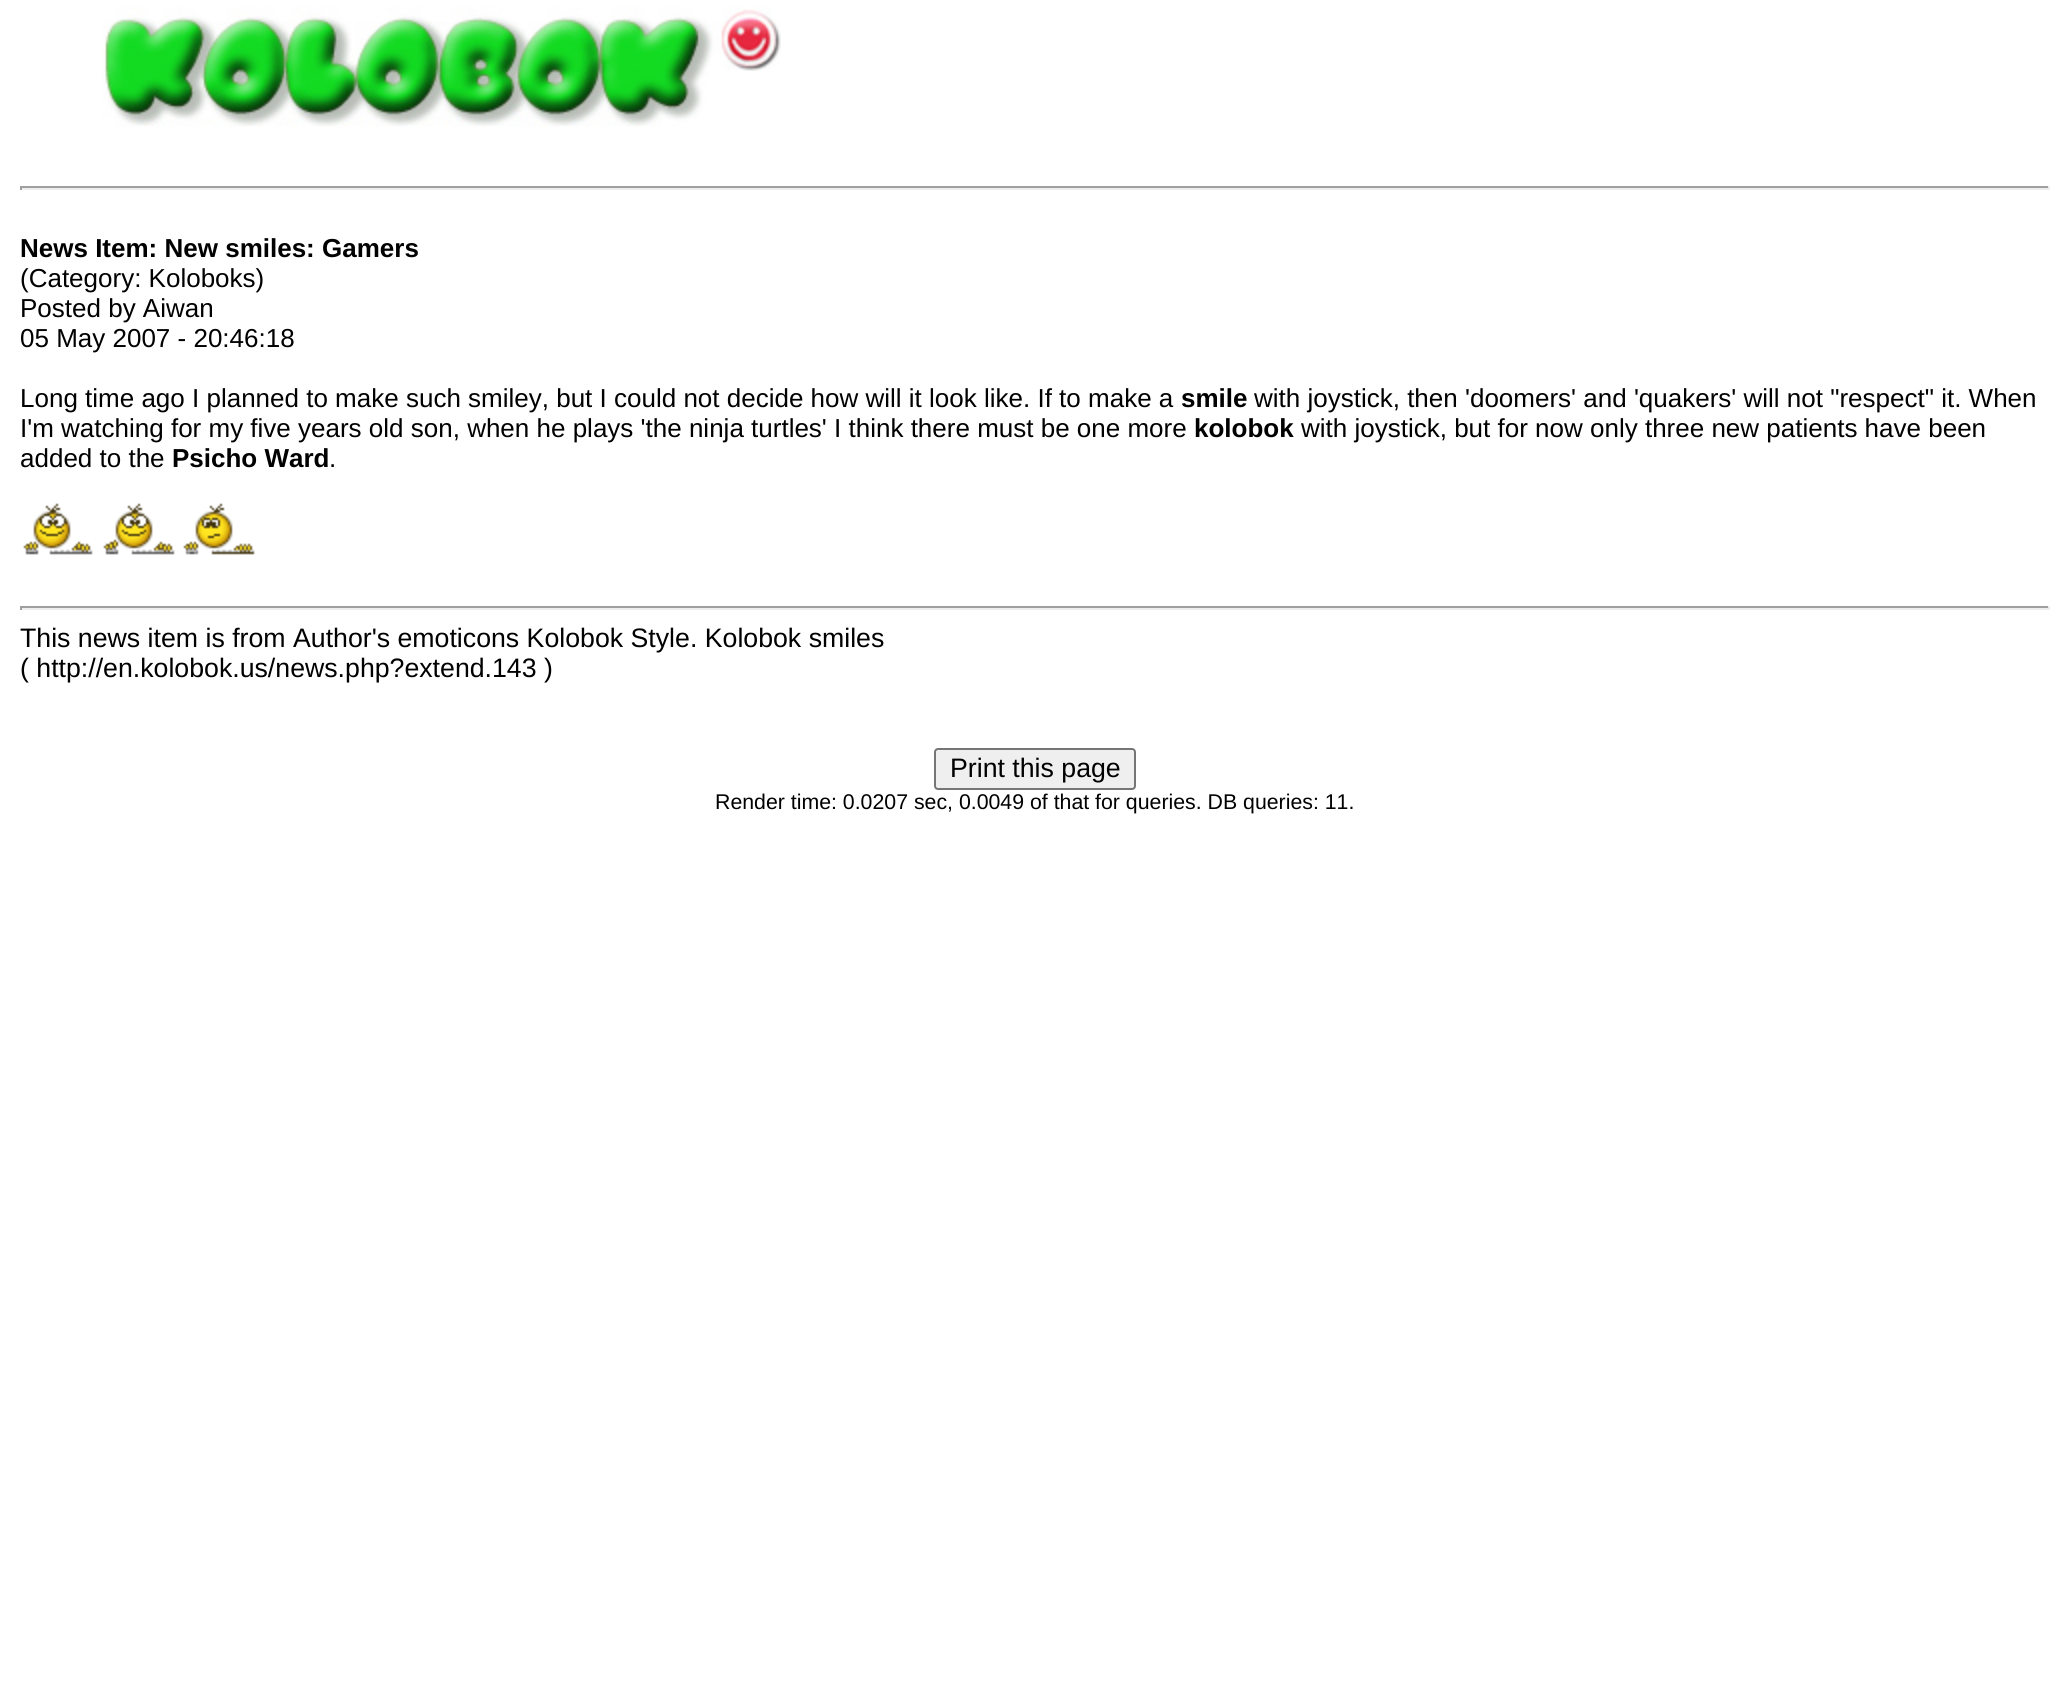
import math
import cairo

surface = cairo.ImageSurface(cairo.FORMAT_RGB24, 2070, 1691)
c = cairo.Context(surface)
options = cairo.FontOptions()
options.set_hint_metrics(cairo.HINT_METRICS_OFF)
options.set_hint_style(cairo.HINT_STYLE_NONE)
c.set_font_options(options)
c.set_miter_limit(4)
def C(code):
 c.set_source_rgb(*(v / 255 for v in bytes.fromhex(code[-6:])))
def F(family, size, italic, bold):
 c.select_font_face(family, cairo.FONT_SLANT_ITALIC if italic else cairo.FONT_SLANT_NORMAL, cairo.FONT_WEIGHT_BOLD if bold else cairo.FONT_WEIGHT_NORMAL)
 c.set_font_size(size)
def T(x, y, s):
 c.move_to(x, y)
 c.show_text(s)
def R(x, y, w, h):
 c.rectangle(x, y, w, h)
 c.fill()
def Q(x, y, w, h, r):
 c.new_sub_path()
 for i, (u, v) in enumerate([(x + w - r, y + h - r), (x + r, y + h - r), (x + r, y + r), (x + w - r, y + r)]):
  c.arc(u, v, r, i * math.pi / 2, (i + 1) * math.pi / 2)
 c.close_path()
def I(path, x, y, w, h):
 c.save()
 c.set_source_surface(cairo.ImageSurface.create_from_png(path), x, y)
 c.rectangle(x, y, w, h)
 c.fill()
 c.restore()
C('ffffff')
c.paint()
I('1.png',102,6,679,121)
C('9f9f9f')
R(20,186,2030,2)
C('eeeeee')
R(2048,186,2,4)
R(20,188,2030,2)
C('9f9f9f')
R(20,186,2,4)
F('Liberation Sans',26,0,1)
C('000000')
T(20,257,'News Item: New smiles: Gamers')
F('Liberation Sans',26,0,0)
T(20,287,'(Category: Koloboks)')
T(20,317,'Posted by Aiwan')
T(20,347,'05 May 2007 - 20:46:18')
T(20,407,'Long time ago I planned to make such smiley, but I could not decide how will it look like. If to make a')
F('Liberation Sans',26,0,1)
T(1181,407,'smile')
F('Liberation Sans',26,0,0)
T(1254,407,'with joystick, then \'doomers\' and \'quakers\' will not "respect" it. When')
T(20,437,'I\'m watching for my five years old son, when he plays \'the ninja turtles\' I think there must be one more')
F('Liberation Sans',26,0,1)
T(1194,437,'kolobok')
F('Liberation Sans',26,0,0)
T(1301,437,'with joystick, but for now only three new patients have been')
T(20,467,'added to the')
F('Liberation Sans',26,0,1)
T(172,467,'Psicho Ward')
F('Liberation Sans',26,0,0)
T(329,467,'.')
I('2.png',23,503,70,52)
I('3.png',103,503,72,52)
I('4.png',183,503,72,52)
C('9f9f9f')
R(20,606,2030,2)
C('eeeeee')
R(2048,606,2,4)
R(20,608,2030,2)
C('9f9f9f')
R(20,606,2,4)
F('Liberation Sans',26.7,0,0)
C('000000')
T(20,647,'This news item is from Author\'s emoticons Kolobok Style. Kolobok smiles')
T(20,677,'( http://en.kolobok.us/news.php?extend.143 )')
C('efefef')
Q(935,749,200,40,3)
c.fill_preserve()
C('767676')
c.stroke()
C('000000')
T(950,777,'Print this page')
F('Liberation Sans',21.3,0,0)
T(715,809,'Render time: 0.0207 sec, 0.0049 of that for queries. DB queries: 11.')
surface.write_to_png('o.png')
